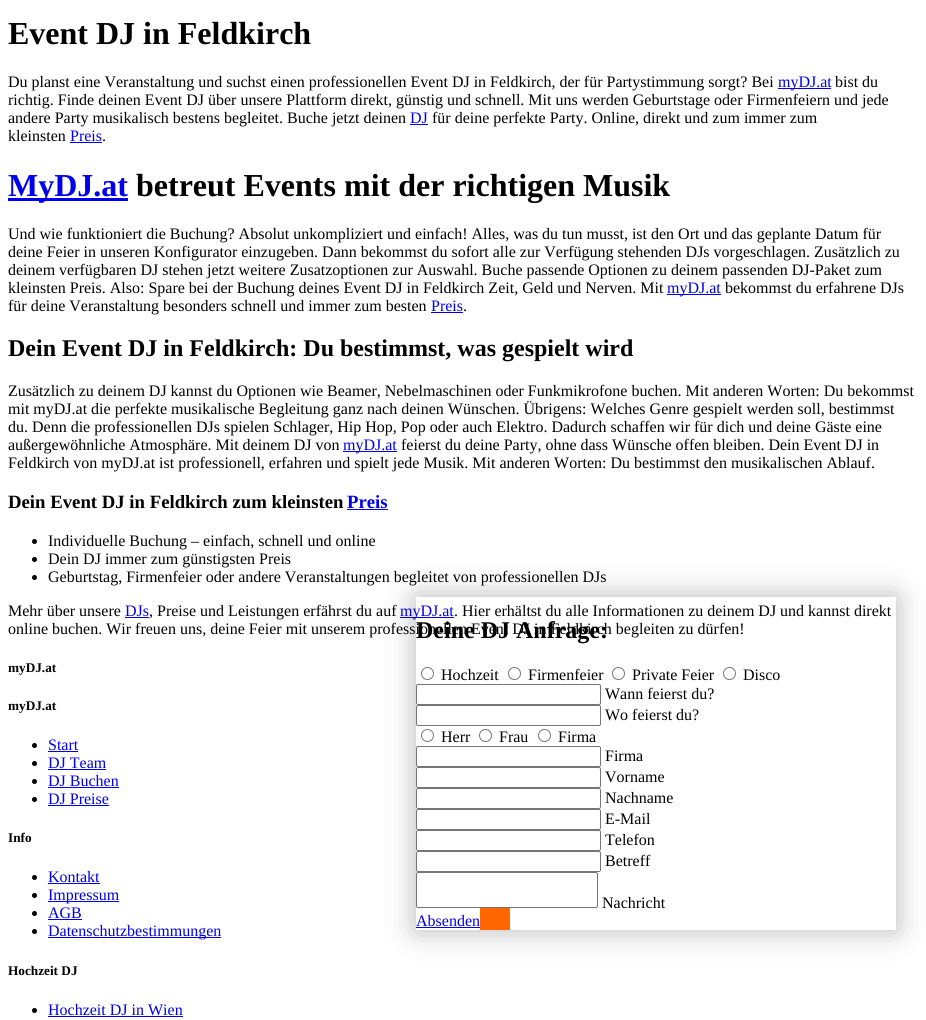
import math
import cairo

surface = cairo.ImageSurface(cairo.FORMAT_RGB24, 926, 1020)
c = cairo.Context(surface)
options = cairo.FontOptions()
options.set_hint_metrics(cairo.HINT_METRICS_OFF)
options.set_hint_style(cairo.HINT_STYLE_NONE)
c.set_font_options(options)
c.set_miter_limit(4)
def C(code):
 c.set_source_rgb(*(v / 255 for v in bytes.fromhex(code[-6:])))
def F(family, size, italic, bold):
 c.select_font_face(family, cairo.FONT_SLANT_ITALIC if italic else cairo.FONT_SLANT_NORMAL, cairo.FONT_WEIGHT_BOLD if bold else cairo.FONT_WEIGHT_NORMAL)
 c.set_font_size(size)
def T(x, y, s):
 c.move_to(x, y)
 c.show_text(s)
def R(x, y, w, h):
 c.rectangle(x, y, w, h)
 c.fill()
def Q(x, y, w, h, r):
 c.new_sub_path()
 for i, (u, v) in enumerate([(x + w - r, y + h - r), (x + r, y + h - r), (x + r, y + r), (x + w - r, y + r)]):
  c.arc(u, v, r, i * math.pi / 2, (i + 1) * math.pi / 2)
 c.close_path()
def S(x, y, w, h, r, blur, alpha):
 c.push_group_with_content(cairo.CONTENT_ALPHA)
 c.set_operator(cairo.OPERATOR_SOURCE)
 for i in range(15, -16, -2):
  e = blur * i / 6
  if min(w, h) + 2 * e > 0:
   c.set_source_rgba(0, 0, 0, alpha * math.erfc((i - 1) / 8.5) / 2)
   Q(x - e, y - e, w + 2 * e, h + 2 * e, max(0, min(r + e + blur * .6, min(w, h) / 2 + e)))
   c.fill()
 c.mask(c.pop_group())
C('ffffff')
c.paint()
F('Liberation Serif',32,0,1)
C('000000')
T(8,44,'Event DJ in Feldkirch')
F('Liberation Serif',16,0,0)
T(8,87,'Du planst eine Veranstaltung und suchst einen professionellen Event DJ in Feldkirch, der für Partystimmung sorgt? Bei')
C('0000ee')
R(778,88,53,1)
T(778,87,'myDJ.at')
C('000000')
T(835,87,'bist du')
T(8,105,'richtig. Finde deinen Event DJ über unsere Plattform direkt, günstig und schnell. Mit uns werden Geburtstage oder Firmenfeiern und jede')
T(8,123,'andere Party musikalisch bestens begleitet. Buche jetzt deinen')
C('0000ee')
T(410,123,'DJ')
R(410,124,18,1)
C('000000')
T(432,123,'für deine perfekte Party. Online, direkt und zum immer zum')
T(8,141,'kleinsten')
C('0000ee')
T(70,141,'Preis')
R(70,142,32,1)
C('000000')
T(102,141,'.')
C('0000ee')
R(8,198,120,3)
F('Liberation Serif',32,0,1)
T(8,196,'MyDJ.at')
C('000000')
T(136,196,'betreut Events mit der richtigen Musik')
F('Liberation Serif',16,0,0)
T(8,239,'Und wie funktioniert die Buchung? Absolut unkompliziert und einfach! Alles, was du tun musst, ist den Ort und das geplante Datum für')
T(8,257,'deine Feier in unseren Konfigurator einzugeben. Dann bekommst du sofort alle zur Verfügung stehenden DJs vorgeschlagen. Zusätzlich zu')
T(8,275,'deinem verfügbaren DJ stehen jetzt weitere Zusatzoptionen zur Auswahl. Buche passende Optionen zu deinem passenden DJ-Paket zum')
T(8,293,'kleinsten Preis. Also: Spare bei der Buchung deines Event DJ in Feldkirch Zeit, Geld und Nerven. Mit')
C('0000ee')
R(667,294,54,1)
T(667,293,'myDJ.at')
C('000000')
T(725,293,'bekommst du erfahrene DJs')
T(8,311,'für deine Veranstaltung besonders schnell und immer zum besten')
C('0000ee')
T(431,311,'Preis')
R(431,312,32,1)
C('000000')
T(463,311,'.')
F('Liberation Serif',24,0,1)
T(8,356,'Dein Event DJ in Feldkirch: Du bestimmst, was gespielt wird')
F('Liberation Serif',16,0,0)
T(8,396,'Zusätzlich zu deinem DJ kannst du Optionen wie Beamer, Nebelmaschinen oder Funkmikrofone buchen. Mit anderen Worten: Du bekommst')
T(8,414,'mit myDJ.at die perfekte musikalische Begleitung ganz nach deinen Wünschen. Übrigens: Welches Genre gespielt werden soll, bestimmst')
T(8,432,'du. Denn die professionellen DJs spielen Schlager, Hip Hop, Pop oder auch Elektro. Dadurch schaffen wir für dich und deine Gäste eine')
T(8,450,'außergewöhnliche Atmosphäre. Mit deinem DJ von')
C('0000ee')
R(343,451,54,1)
T(343,450,'myDJ.at')
C('000000')
T(401,450,'feierst du deine Party, ohne dass Wünsche offen bleiben. Dein Event DJ in')
T(8,468,'Feldkirch von myDJ.at ist professionell, erfahren und spielt jede Musik. Mit anderen Worten: Du bestimmst den musikalischen Ablauf.')
F('Liberation Serif',18.75,0,1)
T(8,508,'Dein Event DJ in Feldkirch zum kleinsten')
C('0000ee')
T(347,508,'Preis')
R(347,509,41,1)
C('000000')
c.new_path()
c.arc(34.5,541.5,2.5,0,2 * math.pi)
c.fill()
F('Liberation Serif',16,0,0)
T(48,546,'Individuelle Buchung – einfach, schnell und online')
c.new_path()
c.arc(34.5,559.5,2.5,0,2 * math.pi)
c.fill()
T(48,564,'Dein DJ immer zum günstigsten Preis')
c.new_path()
c.arc(34.5,577.5,2.5,0,2 * math.pi)
c.fill()
T(48,582,'Geburtstag, Firmenfeier oder andere Veranstaltungen begleitet von professionellen DJs')
T(8,616,'Mehr über unsere')
C('0000ee')
T(125,616,'DJs')
R(125,617,24,1)
C('000000')
T(149,616,', Preise und Leistungen erfährst du auf')
C('0000ee')
R(400,617,54,1)
T(400,616,'myDJ.at')
C('000000')
T(454,616,'. Hier erhältst du alle Informationen zu deinem DJ und kannst direkt')
T(8,634,'online buchen. Wir freuen uns, deine Feier mit unserem professionellen Event DJ in Feldkirch begleiten zu dürfen!')
F('Liberation Serif',13.25,0,1)
T(8,672,'myDJ.at')
T(8,710,'myDJ.at')
c.new_path()
c.arc(34.5,745.5,2.5,0,2 * math.pi)
c.fill()
F('Liberation Serif',16,0,0)
C('0000ee')
T(48,750,'Start')
R(48,751,30,1)
C('000000')
c.new_path()
c.arc(34.5,763.5,2.5,0,2 * math.pi)
c.fill()
C('0000ee')
T(48,768,'DJ Team')
R(48,769,58,1)
C('000000')
c.new_path()
c.arc(34.5,781.5,2.5,0,2 * math.pi)
c.fill()
C('0000ee')
T(48,786,'DJ Buchen')
R(48,787,71,1)
C('000000')
c.new_path()
c.arc(34.5,799.5,2.5,0,2 * math.pi)
c.fill()
C('0000ee')
T(48,804,'DJ Preise')
R(48,805,61,1)
F('Liberation Serif',13.25,0,1)
C('000000')
T(8,842,'Info')
c.new_path()
c.arc(34.5,877.5,2.5,0,2 * math.pi)
c.fill()
F('Liberation Serif',16,0,0)
C('0000ee')
T(48,882,'Kontakt')
R(48,883,52,1)
C('000000')
c.new_path()
c.arc(34.5,895.5,2.5,0,2 * math.pi)
c.fill()
C('0000ee')
R(48,901,71,1)
T(48,900,'Impressum')
C('000000')
c.new_path()
c.arc(34.5,913.5,2.5,0,2 * math.pi)
c.fill()
C('0000ee')
T(48,918,'AGB')
R(48,919,34,1)
C('000000')
c.new_path()
c.arc(34.5,931.5,2.5,0,2 * math.pi)
c.fill()
C('0000ee')
R(48,937,173,1)
T(48,936,'Datenschutzbestimmungen')
F('Liberation Serif',13.25,0,1)
C('000000')
T(8,975,'Hochzeit DJ')
c.new_path()
c.arc(34.5,1010.5,2.5,0,2 * math.pi)
c.fill()
F('Liberation Serif',16,0,0)
C('0000ee')
T(48,1015,'Hochzeit DJ in Wien')
R(48,1016,135,1)
c.save()
c.set_fill_rule(cairo.FILL_RULE_EVEN_ODD)
c.new_path()
c.move_to(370,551)
c.line_to(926,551)
c.line_to(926,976)
c.line_to(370,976)
c.close_path()
c.move_to(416,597)
c.line_to(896,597)
c.line_to(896,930)
c.line_to(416,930)
c.close_path()
c.clip()
C('323232')
S(416,597,480,333,0,15,.35)
c.restore()
F('Liberation Serif',24,0,1)
C('000000')
T(416,638,'Deine DJ Anfrage:')
c.new_path()
c.arc(427.5,673.5,6,0,2 * math.pi)
C('767676')
c.set_line_width(1)
c.stroke()
F('Liberation Serif',16,0,0)
C('000000')
T(441,680,'Hochzeit')
c.new_path()
c.arc(514.5,673.5,6,0,2 * math.pi)
C('767676')
c.stroke()
C('000000')
T(528,680,'Firmenfeier')
c.new_path()
c.arc(618.5,673.5,6,0,2 * math.pi)
C('767676')
c.stroke()
C('000000')
T(632,680,'Private Feier')
c.new_path()
c.arc(729.5,673.5,6,0,2 * math.pi)
C('767676')
c.stroke()
C('000000')
T(743,680,'Disco')
Q(416.5,684.5,184,20,1.5)
C('767676')
c.stroke()
C('000000')
T(605,699,'Wann feierst du?')
Q(416.5,705.5,184,20,1.5)
C('767676')
c.stroke()
C('000000')
T(605,720,'Wo feierst du?')
c.new_path()
c.arc(427.5,735.5,6,0,2 * math.pi)
C('767676')
c.stroke()
C('000000')
T(441,742,'Herr')
c.new_path()
c.arc(485.5,735.5,6,0,2 * math.pi)
C('767676')
c.stroke()
C('000000')
T(499,742,'Frau')
c.new_path()
c.arc(544.5,735.5,6,0,2 * math.pi)
C('767676')
c.stroke()
C('000000')
T(558,742,'Firma')
Q(416.5,746.5,184,20,1.5)
C('767676')
c.stroke()
C('000000')
T(605,761,'Firma')
Q(416.5,767.5,184,20,1.5)
C('767676')
c.stroke()
C('000000')
T(605,782,'Vorname')
Q(416.5,788.5,184,20,1.5)
C('767676')
c.stroke()
C('000000')
T(605,803,'Nachname')
Q(416.5,809.5,184,20,1.5)
C('767676')
c.stroke()
C('000000')
T(605,824,'E-Mail')
Q(416.5,830.5,184,20,1.5)
C('767676')
c.stroke()
C('000000')
T(605,845,'Telefon')
Q(416.5,851.5,184,20,1.5)
C('767676')
c.stroke()
C('000000')
T(605,866,'Betreff')
Q(416.5,872.5,181,35,1.5)
C('767676')
c.stroke()
C('000000')
T(602,908,'Nachricht')
C('0000ee')
T(416,926,'Absenden')
R(416,927,64,1)
C('ff6600')
R(480,908,30,22)
surface.write_to_png('o.png')
